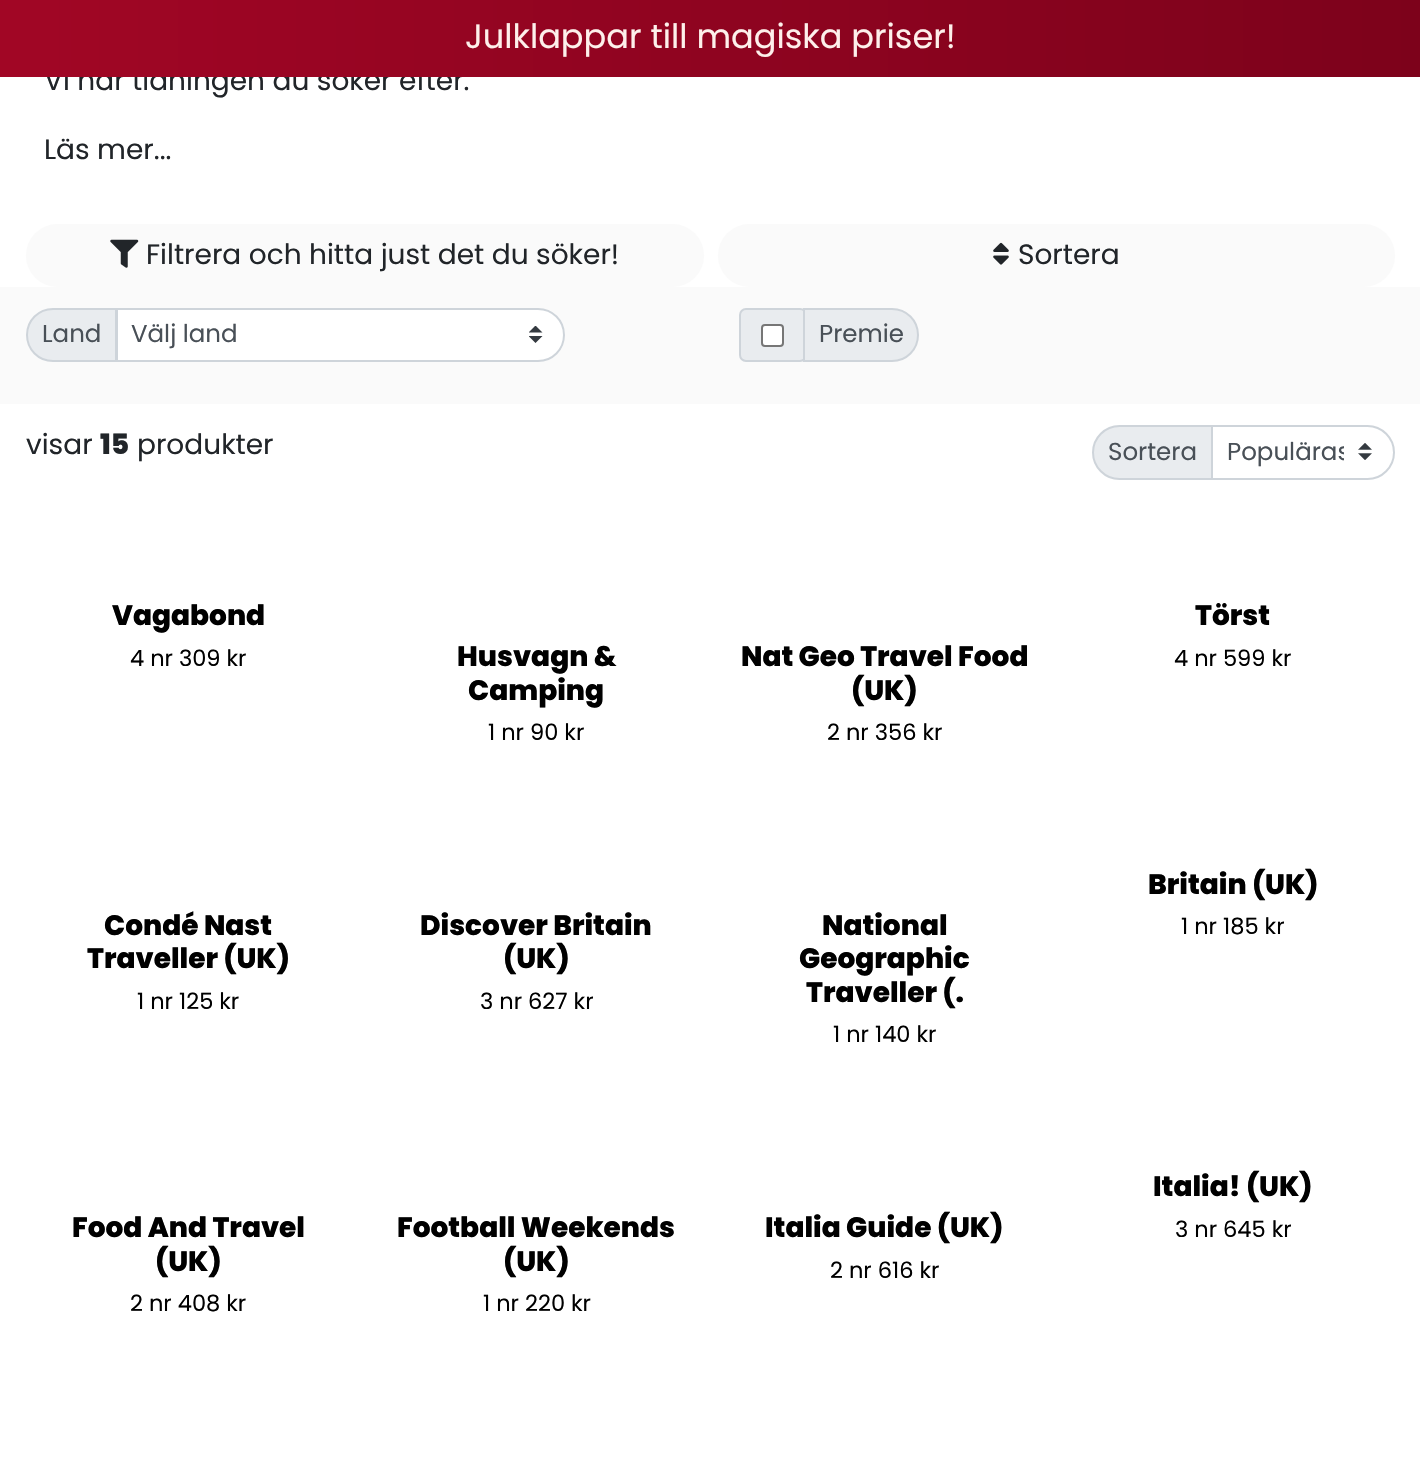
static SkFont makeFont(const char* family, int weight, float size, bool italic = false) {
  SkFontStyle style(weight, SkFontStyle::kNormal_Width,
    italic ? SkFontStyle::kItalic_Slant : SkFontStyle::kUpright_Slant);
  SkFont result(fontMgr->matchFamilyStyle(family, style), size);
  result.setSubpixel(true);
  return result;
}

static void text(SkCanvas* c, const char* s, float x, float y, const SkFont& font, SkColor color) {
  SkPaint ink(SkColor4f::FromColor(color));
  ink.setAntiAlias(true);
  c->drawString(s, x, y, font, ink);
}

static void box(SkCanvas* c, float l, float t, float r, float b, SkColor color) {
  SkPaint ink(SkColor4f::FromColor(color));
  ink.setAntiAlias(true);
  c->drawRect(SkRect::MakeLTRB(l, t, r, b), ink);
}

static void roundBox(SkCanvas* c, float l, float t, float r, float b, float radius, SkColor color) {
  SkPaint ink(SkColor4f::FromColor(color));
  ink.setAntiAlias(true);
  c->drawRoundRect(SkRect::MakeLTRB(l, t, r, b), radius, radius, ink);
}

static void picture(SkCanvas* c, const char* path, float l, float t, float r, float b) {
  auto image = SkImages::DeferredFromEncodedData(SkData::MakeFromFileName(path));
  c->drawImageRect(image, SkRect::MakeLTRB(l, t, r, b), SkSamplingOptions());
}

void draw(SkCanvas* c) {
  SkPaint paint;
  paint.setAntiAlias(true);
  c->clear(0xffffffff);
  SkFont face1 = makeFont("Poppins", 400, 28);
  text(c, "Vi har tidningen du söker efter.", 44, 90, face1, 0xff212529);
  {
    const SkColor colors[] = {0xffa10625, 0xff7d021b};
    const float stops[] = {0, 1};
    const SkPoint ends[] = {{0, 39}, {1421, 38}};
    paint.setShader(SkGradientShader::MakeLinear(ends, colors, stops, 2, SkTileMode::kClamp));
    paint.setAlpha(255);
  }
  c->drawRect(SkRect::MakeLTRB(0, 0, 1420, 77), paint);
  SkFont face2 = makeFont("Poppins", 400, 33.6f);
  text(c, "Julklappar till magiska priser!", 465, 48, face2, 0xfffef0eb);
  text(c, "Läs mer...", 44, 159, face1, 0xff212529);
  roundBox(c, 26, 224, 704, 287, 31.5f, 0xfffafafa);
  picture(c, "img_01.png", 110, 239, 139, 268);
  text(c, "Filtrera och hitta just det du söker!", 146, 264, face1, 0xff212529);
  roundBox(c, 718, 224, 1395, 287, 31.5f, 0xfffafafa);
  picture(c, "img_02.png", 993, 242, 1009, 265);
  text(c, "Sortera", 1018, 264, face1, 0xff212529);
  box(c, 0, 287, 1420, 404, 0xfffafafa);
  paint.setShader(nullptr);
  paint.setColor(0xffe9ecef);
  c->drawPath(SkPathBuilder().moveTo(53, 309).lineTo(116, 309).lineTo(116, 361).lineTo(53, 361).cubicTo(38.5f, 361, 27, 349.5f, 27, 335).cubicTo(27, 320.5f, 38.5f, 309, 53, 309).close().detach(), paint);
  paint.setStyle(SkPaint::kStroke_Style);
  paint.setStrokeWidth(2);
  paint.setColor(0xffced4da);
  c->drawPath(SkPathBuilder().moveTo(53, 309).lineTo(116, 309).lineTo(116, 361).lineTo(53, 361).cubicTo(38.5f, 361, 27, 349.5f, 27, 335).cubicTo(27, 320.5f, 38.5f, 309, 53, 309).close().detach(), paint);
  SkFont face3 = makeFont("Poppins", 400, 24.5f);
  text(c, "Land", 42, 342, face3, 0xff495057);
  paint.setStyle(SkPaint::kFill_Style);
  paint.setColor(0xffffffff);
  c->drawPath(SkPathBuilder().moveTo(116, 308).lineTo(538, 308).cubicTo(553, 308, 565, 320, 565, 335).cubicTo(565, 350, 553, 362, 538, 362).lineTo(116, 362).close().detach(), paint);
  c->save();
  c->clipRect(SkRect::MakeLTRB(529, 326, 543, 343));
  paint.setColor(0xff343a40);
  c->drawPath(SkPathBuilder().moveTo(535.5f, 325.5f).lineTo(528.5f, 332.5f).lineTo(542.5f, 332.5f).close().moveTo(535.5f, 343).lineTo(528.5f, 336).lineTo(542.5f, 336).close().detach(), paint);
  c->restore();
  paint.setStyle(SkPaint::kStroke_Style);
  paint.setColor(0xffced4da);
  c->drawPath(SkPathBuilder().moveTo(117, 309).lineTo(538, 309).cubicTo(552.5f, 309, 564, 320.5f, 564, 335).cubicTo(564, 349.5f, 552.5f, 361, 538, 361).lineTo(117, 361).close().detach(), paint);
  text(c, "Välj land", 131, 342, face3, 0xff495057);
  paint.setStyle(SkPaint::kFill_Style);
  paint.setColor(0xffe9ecef);
  c->drawRoundRect(SkRect::MakeLTRB(740, 309, 806, 361), 6, 6, paint);
  paint.setStyle(SkPaint::kStroke_Style);
  paint.setColor(0xffced4da);
  c->drawRoundRect(SkRect::MakeLTRB(740, 309, 806, 361), 6, 6, paint);
  paint.setStyle(SkPaint::kFill_Style);
  paint.setColor(0xffffffff);
  c->drawRoundRect(SkRect::MakeLTRB(762, 325, 783, 346), 3, 3, paint);
  paint.setStyle(SkPaint::kStroke_Style);
  paint.setColor(0xff767676);
  c->drawRoundRect(SkRect::MakeLTRB(762, 325, 783, 346), 3, 3, paint);
  paint.setStyle(SkPaint::kFill_Style);
  paint.setColor(0xffe9ecef);
  c->drawPath(SkPathBuilder().moveTo(804, 309).lineTo(892, 309).cubicTo(906.5f, 309, 918, 320.5f, 918, 335).cubicTo(918, 349.5f, 906.5f, 361, 892, 361).lineTo(804, 361).close().detach(), paint);
  paint.setStyle(SkPaint::kStroke_Style);
  paint.setColor(0xffced4da);
  c->drawPath(SkPathBuilder().moveTo(804, 309).lineTo(892, 309).cubicTo(906.5f, 309, 918, 320.5f, 918, 335).cubicTo(918, 349.5f, 906.5f, 361, 892, 361).lineTo(804, 361).close().detach(), paint);
  text(c, "Premie", 819, 342, face3, 0xff495057);
  text(c, "visar", 26, 454, face1, 0xff212529);
  SkFont face4 = makeFont("Poppins", 800, 28);
  text(c, "15", 100, 454, face4, 0xff212529);
  text(c, "produkter", 137, 454, face1, 0xff212529);
  paint.setStyle(SkPaint::kFill_Style);
  paint.setColor(0xffe9ecef);
  c->drawPath(SkPathBuilder().moveTo(1119.5f, 426).lineTo(1212, 426).lineTo(1212, 479).lineTo(1119.5f, 479).cubicTo(1105, 479, 1093, 467, 1093, 452.5f).cubicTo(1093, 438, 1105, 426, 1119.5f, 426).close().detach(), paint);
  paint.setStyle(SkPaint::kStroke_Style);
  paint.setColor(0xffced4da);
  c->drawPath(SkPathBuilder().moveTo(1119.5f, 426).lineTo(1212, 426).lineTo(1212, 479).lineTo(1119.5f, 479).cubicTo(1105, 479, 1093, 467, 1093, 452.5f).cubicTo(1093, 438, 1105, 426, 1119.5f, 426).close().detach(), paint);
  text(c, "Sortera", 1108, 460, face3, 0xff495057);
  paint.setStyle(SkPaint::kFill_Style);
  paint.setColor(0xffffffff);
  c->drawPath(SkPathBuilder().moveTo(1211, 425).lineTo(1367.5f, 425).cubicTo(1382.5f, 425, 1395, 437.5f, 1395, 452.5f).cubicTo(1395, 467.5f, 1382.5f, 480, 1367.5f, 480).lineTo(1211, 480).close().detach(), paint);
  picture(c, "img_03.png", 1358, 443, 1372, 460);
  paint.setStyle(SkPaint::kStroke_Style);
  paint.setColor(0xffced4da);
  c->drawPath(SkPathBuilder().moveTo(1212, 426).lineTo(1367.5f, 426).cubicTo(1382, 426, 1394, 438, 1394, 452.5f).cubicTo(1394, 467, 1382, 479, 1367.5f, 479).lineTo(1212, 479).close().detach(), paint);
  c->save();
  c->clipRect(SkRect::MakeLTRB(1227, 434, 1344, 471));
  text(c, "Populäras", 1227, 460, face3, 0xff495057);
  c->restore();
  text(c, "Vagabond", 112, 625, face4, 0xff000000);
  SkFont face5 = makeFont("Poppins", 400, 22.5f);
  text(c, "4 nr 309 kr", 130, 666, face5, 0xff000000);
  text(c, "Törst", 1195, 625, face4, 0xff000000);
  text(c, "4 nr 599 kr", 1174, 666, face5, 0xff000000);
  text(c, "Husvagn &", 457, 666, face4, 0xff000000);
  text(c, "Camping", 468, 700, face4, 0xff000000);
  text(c, "1 nr 90 kr", 488, 740, face5, 0xff000000);
  text(c, "Nat Geo Travel Food", 741, 666, face4, 0xff000000);
  text(c, "(UK)", 851, 700, face4, 0xff000000);
  text(c, "2 nr 356 kr", 827, 740, face5, 0xff000000);
  text(c, "Britain (UK)", 1148, 894, face4, 0xff000000);
  text(c, "1 nr 185 kr", 1181, 934, face5, 0xff000000);
  text(c, "Condé Nast", 104, 935, face4, 0xff000000);
  text(c, "Traveller (UK)", 87, 968, face4, 0xff000000);
  text(c, "1 nr 125 kr", 137, 1009, face5, 0xff000000);
  text(c, "Discover Britain", 420, 935, face4, 0xff000000);
  text(c, "(UK)", 503, 968, face4, 0xff000000);
  text(c, "3 nr 627 kr", 480, 1009, face5, 0xff000000);
  text(c, "National", 822, 935, face4, 0xff000000);
  text(c, "Geographic", 799, 968, face4, 0xff000000);
  text(c, "Traveller (.", 806, 1002, face4, 0xff000000);
  text(c, "1 nr 140 kr", 833, 1042, face5, 0xff000000);
  text(c, "Italia! (UK)", 1153, 1196, face4, 0xff000000);
  text(c, "3 nr 645 kr", 1175, 1237, face5, 0xff000000);
  text(c, "Food And Travel", 72, 1237, face4, 0xff000000);
  text(c, "(UK)", 155, 1271, face4, 0xff000000);
  text(c, "2 nr 408 kr", 130, 1311, face5, 0xff000000);
  text(c, "Football Weekends", 397, 1237, face4, 0xff000000);
  text(c, "(UK)", 503, 1271, face4, 0xff000000);
  text(c, "1 nr 220 kr", 483, 1311, face5, 0xff000000);
  text(c, "Italia Guide (UK)", 765, 1237, face4, 0xff000000);
  text(c, "2 nr 616 kr", 830, 1278, face5, 0xff000000);
}
